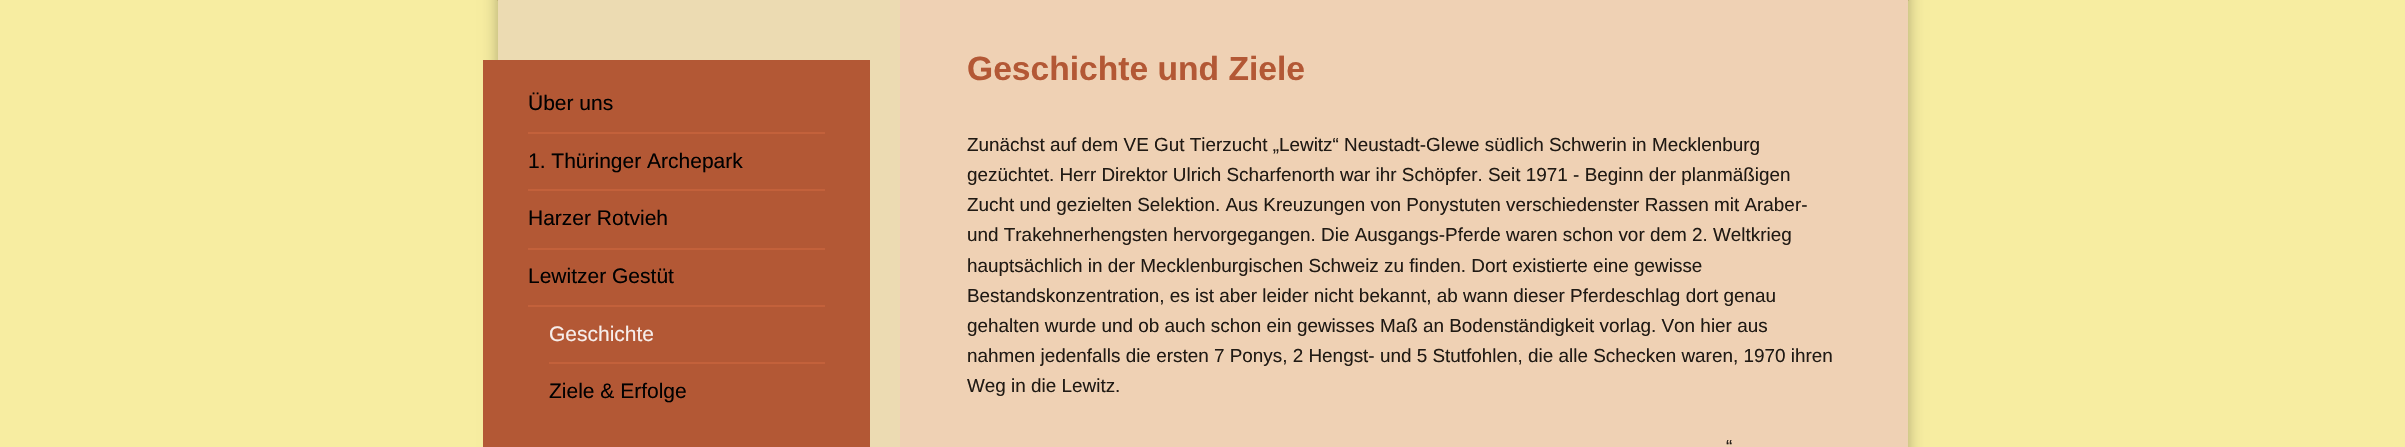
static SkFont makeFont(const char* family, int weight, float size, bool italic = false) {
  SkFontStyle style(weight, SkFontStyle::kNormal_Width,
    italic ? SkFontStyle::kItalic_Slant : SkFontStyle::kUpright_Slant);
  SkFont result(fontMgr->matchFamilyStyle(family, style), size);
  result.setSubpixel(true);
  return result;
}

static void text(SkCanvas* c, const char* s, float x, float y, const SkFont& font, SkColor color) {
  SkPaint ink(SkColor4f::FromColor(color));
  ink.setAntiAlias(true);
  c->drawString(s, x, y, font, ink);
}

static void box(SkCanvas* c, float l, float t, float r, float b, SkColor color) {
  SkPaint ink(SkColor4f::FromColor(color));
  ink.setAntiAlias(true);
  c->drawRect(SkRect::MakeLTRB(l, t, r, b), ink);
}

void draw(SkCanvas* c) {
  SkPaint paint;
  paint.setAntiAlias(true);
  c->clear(0xfff7eda1);
  paint.setColor(0x4d000000);
  paint.setMaskFilter(SkMaskFilter::MakeBlur(kNormal_SkBlurStyle, 7.5f));
  c->drawRect(SkRect::MakeLTRB(498, -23, 1908, 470), paint);
  paint.setMaskFilter(nullptr);
  paint.setColor(0xff64311e);
  c->drawPath(SkPathBuilder().moveTo(498, -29.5f).lineTo(498, 0.5f).lineTo(483, -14.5f).close().detach(), paint);
  c->drawPath(SkPathBuilder().moveTo(1908, 0.5f).lineTo(1908, -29.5f).lineTo(1923, -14.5f).close().detach(), paint);
  box(c, 900, 0, 1908, 447, 0xffefd1b4);
  box(c, 498, 0, 900, 447, 0xffecdbb2);
  SkFont face1 = makeFont("Liberation Sans", 700, 33.6f);
  text(c, "Geschichte und Ziele", 967, 80, face1, 0xffb35835);
  SkFont face2 = makeFont("Liberation Sans", 400, 18.9f);
  text(c, "Zunächst auf dem VE Gut Tierzucht „Lewitz“ Neustadt-Glewe südlich Schwerin in Mecklenburg", 967, 151, face2, 0xff201a14);
  text(c, "gezüchtet. Herr Direktor Ulrich Scharfenorth war ihr Schöpfer. Seit 1971 - Beginn der planmäßigen", 967, 181, face2, 0xff201a14);
  text(c, "Zucht und gezielten Selektion. Aus Kreuzungen von Ponystuten verschiedenster Rassen mit Araber-", 967, 211, face2, 0xff201a14);
  text(c, "und Trakehnerhengsten hervorgegangen. Die Ausgangs-Pferde waren schon vor dem 2. Weltkrieg", 967, 241, face2, 0xff201a14);
  text(c, "hauptsächlich in der Mecklenburgischen Schweiz zu finden. Dort existierte eine gewisse", 967, 272, face2, 0xff201a14);
  text(c, "Bestandskonzentration, es ist aber leider nicht bekannt, ab wann dieser Pferdeschlag dort genau", 967, 302, face2, 0xff201a14);
  text(c, "gehalten wurde und ob auch schon ein gewisses Maß an Bodenständigkeit vorlag. Von hier aus", 967, 332, face2, 0xff201a14);
  text(c, "nahmen jedenfalls die ersten 7 Ponys, 2 Hengst- und 5 Stutfohlen, die alle Schecken waren, 1970 ihren", 967, 362, face2, 0xff201a14);
  text(c, "Weg in die Lewitz.", 967, 392, face2, 0xff201a14);
  text(c, "“", 1726, 453, face2, 0xff201a14);
  box(c, 483, 60, 870, 447, 0xffb35835);
  box(c, 528, 132, 825, 134, 0xffc3613b);
  SkFont face3 = makeFont("Liberation Sans", 400, 21);
  text(c, "Über uns", 528, 110, face3, 0xff000000);
  box(c, 528, 189, 825, 191, 0xffc3613b);
  text(c, "1. Thüringer Archepark", 528, 168, face3, 0xff000000);
  box(c, 528, 248, 825, 250, 0xffc3613b);
  text(c, "Harzer Rotvieh", 528, 225, face3, 0xff000000);
  box(c, 528, 305, 825, 307, 0xffc3613b);
  text(c, "Lewitzer Gestüt", 528, 283, face3, 0xff000000);
  box(c, 549, 362, 825, 364, 0xffc3613b);
  text(c, "Geschichte", 549, 341, face3, 0xfff7eeeb);
  text(c, "Ziele & Erfolge", 549, 398, face3, 0xff000000);
}
